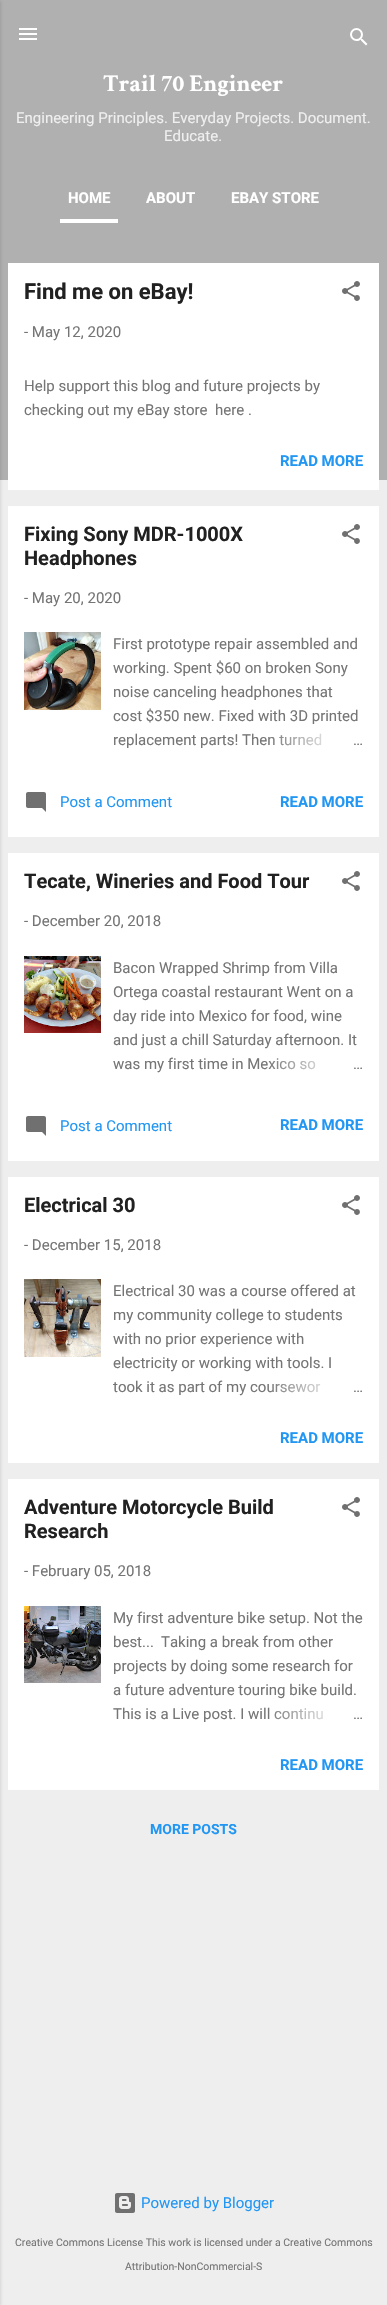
static SkFont makeFont(const char* family, int weight, float size, bool italic = false) {
  SkFontStyle style(weight, SkFontStyle::kNormal_Width,
    italic ? SkFontStyle::kItalic_Slant : SkFontStyle::kUpright_Slant);
  SkFont result(fontMgr->matchFamilyStyle(family, style), size);
  result.setSubpixel(true);
  return result;
}

static void text(SkCanvas* c, const char* s, float x, float y, const SkFont& font, SkColor color) {
  SkPaint ink(SkColor4f::FromColor(color));
  ink.setAntiAlias(true);
  c->drawString(s, x, y, font, ink);
}

static void box(SkCanvas* c, float l, float t, float r, float b, SkColor color) {
  SkPaint ink(SkColor4f::FromColor(color));
  ink.setAntiAlias(true);
  c->drawRect(SkRect::MakeLTRB(l, t, r, b), ink);
}

static void picture(SkCanvas* c, const char* path, float l, float t, float r, float b) {
  auto image = SkImages::DeferredFromEncodedData(SkData::MakeFromFileName(path));
  c->drawImageRect(image, SkRect::MakeLTRB(l, t, r, b), SkSamplingOptions());
}

void draw(SkCanvas* c) {
  SkPaint paint;
  paint.setAntiAlias(true);
  c->clear(0xffeeeeee);
  box(c, 0, 0, 387, 480, 0xffb0b0b0);
  paint.setColor(0x1a000000);
  paint.setMaskFilter(SkMaskFilter::MakeBlur(kNormal_SkBlurStyle, 1.5f));
  c->drawRect(SkRect::MakeLTRB(-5, 1, 1, 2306), paint);
  paint.setMaskFilter(nullptr);
  picture(c, "img_01.png", 19, 28, 37, 40);
  picture(c, "img_02.png", 350, 28, 368, 46);
  SkFont face1 = makeFont("Crimson Text", 700, 24);
  text(c, "Trail 70 Engineer", 103, 91, face1, 0xffffffff);
  SkFont face2 = makeFont("Roboto", 400, 15);
  text(c, "Engineering Principles. Everyday Projects. Document.", 16, 123, face2, 0xffefefef);
  text(c, "Educate.", 164, 141, face2, 0xffefefef);
  box(c, 60, 219, 118, 223, 0xffffffff);
  SkFont face3 = makeFont("Roboto", 700, 15);
  text(c, "HOME", 68, 203, face3, 0xffffffff);
  text(c, "ABOUT", 146, 203, face3, 0xffffffff);
  text(c, "EBAY STORE", 231, 203, face3, 0xffffffff);
  box(c, 8, 263, 379, 490, 0xffffffff);
  SkFont face4 = makeFont("Roboto", 700, 22);
  text(c, "Find me on eBay!", 24, 299, face4, 0xff212121);
  picture(c, "img_03.png", 342, 281, 360, 301);
  text(c, "- May 12, 2020", 24, 337, face2, 0xff757575);
  text(c, "Help support this blog and future projects by", 24, 391, face2, 0xff757575);
  text(c, "checking out my eBay store  here .", 24, 415, face2, 0xff757575);
  text(c, "READ MORE", 280, 466, face3, 0xff2196f3);
  box(c, 8, 506, 379, 837, 0xffffffff);
  SkFont face5 = makeFont("Roboto", 700, 20);
  text(c, "Fixing Sony MDR-1000X", 24, 541, face5, 0xff212121);
  text(c, "Headphones", 24, 565, face5, 0xff212121);
  picture(c, "img_03.png", 342, 524, 360, 544);
  text(c, "- May 20, 2020", 24, 603, face2, 0xff757575);
  picture(c, "img_04.png", 24, 632, 101, 710);
  text(c, "First prototype repair assembled and", 113, 649, face2, 0xff757575);
  text(c, "working. Spent $60 on broken Sony", 113, 673, face2, 0xff757575);
  text(c, "noise canceling headphones that", 113, 697, face2, 0xff757575);
  text(c, "cost $350 new. Fixed with 3D printed", 113, 721, face2, 0xff757575);
  text(c, "replacement parts! Then turned", 113, 745, face2, 0xff757575);
  {
    const SkColor colors[] = {0xffffffff, 0xffffffff, 0x00ffffff};
    const float stops[] = {0, 0.2f, 1};
    const SkPoint ends[] = {{363, 740}, {267, 740}};
    paint.setShader(SkGradientShader::MakeLinear(ends, colors, stops, 3, SkTileMode::kClamp));
    paint.setAlpha(255);
  }
  c->drawRect(SkRect::MakeLTRB(269, 733, 322, 746), paint);
  text(c, "…", 353, 745, face2, 0xff757575);
  picture(c, "img_05.png", 26, 792, 46, 812);
  text(c, "Post a Comment", 60, 807, face2, 0xff2196f3);
  text(c, "READ MORE", 280, 807, face3, 0xff2196f3);
  box(c, 8, 853, 379, 1161, 0xffffffff);
  text(c, "Tecate, Wineries and Food Tour", 24, 888, face5, 0xff212121);
  picture(c, "img_03.png", 342, 871, 360, 891);
  text(c, "- December 20, 2018", 24, 926, face2, 0xff757575);
  picture(c, "img_06.png", 24, 956, 101, 1033);
  text(c, "Bacon Wrapped Shrimp from Villa", 113, 973, face2, 0xff757575);
  text(c, "Ortega coastal restaurant Went on a", 113, 997, face2, 0xff757575);
  text(c, "day ride into Mexico for food, wine", 113, 1021, face2, 0xff757575);
  text(c, "and just a chill Saturday afternoon. It", 113, 1045, face2, 0xff757575);
  text(c, "was my first time in Mexico so", 113, 1069, face2, 0xff757575);
  {
    const SkColor colors[] = {0xffffffff, 0xffffffff, 0x00ffffff};
    const float stops[] = {0, 0.2f, 1};
    const SkPoint ends[] = {{363, 1064}, {267, 1064}};
    paint.setShader(SkGradientShader::MakeLinear(ends, colors, stops, 3, SkTileMode::kClamp));
    paint.setAlpha(255);
  }
  c->drawRect(SkRect::MakeLTRB(269, 1058, 316, 1070), paint);
  text(c, "…", 353, 1069, face2, 0xff757575);
  picture(c, "img_05.png", 26, 1116, 46, 1136);
  text(c, "Post a Comment", 60, 1131, face2, 0xff2196f3);
  text(c, "READ MORE", 280, 1130, face3, 0xff2196f3);
  box(c, 8, 1177, 379, 1463, 0xffffffff);
  text(c, "Electrical 30", 24, 1212, face5, 0xff212121);
  picture(c, "img_03.png", 342, 1195, 360, 1215);
  text(c, "- December 15, 2018", 24, 1250, face2, 0xff757575);
  picture(c, "img_07.png", 24, 1279, 101, 1357);
  text(c, "Electrical 30 was a course offered at", 113, 1296, face2, 0xff757575);
  text(c, "my community college to students", 113, 1320, face2, 0xff757575);
  text(c, "with no prior experience with", 113, 1344, face2, 0xff757575);
  text(c, "electricity or working with tools. I", 113, 1368, face2, 0xff757575);
  text(c, "took it as part of my coursewor", 113, 1392, face2, 0xff757575);
  {
    const SkColor colors[] = {0xffffffff, 0xffffffff, 0x00ffffff};
    const float stops[] = {0, 0.2f, 1};
    const SkPoint ends[] = {{363, 1387}, {267, 1387}};
    paint.setShader(SkGradientShader::MakeLinear(ends, colors, stops, 3, SkTileMode::kClamp));
    paint.setAlpha(255);
  }
  c->drawRect(SkRect::MakeLTRB(269, 1383, 321, 1393), paint);
  text(c, "…", 353, 1392, face2, 0xff757575);
  text(c, "READ MORE", 280, 1443, face3, 0xff2196f3);
  box(c, 8, 1479, 379, 1790, 0xffffffff);
  text(c, "Adventure Motorcycle Build", 24, 1514, face5, 0xff212121);
  text(c, "Research", 24, 1538, face5, 0xff212121);
  picture(c, "img_03.png", 342, 1497, 360, 1517);
  text(c, "- February 05, 2018", 24, 1576, face2, 0xff757575);
  picture(c, "img_08.png", 24, 1606, 101, 1683);
  text(c, "My first adventure bike setup. Not the", 113, 1623, face2, 0xff757575);
  text(c, "best...", 113, 1647, face2, 0xff757575);
  text(c, "Taking a break from other", 161, 1647, face2, 0xff757575);
  text(c, "projects by doing some research for", 113, 1671, face2, 0xff757575);
  text(c, "a future adventure touring bike build.", 113, 1695, face2, 0xff757575);
  text(c, "This is a Live post. I will continu", 113, 1719, face2, 0xff757575);
  {
    const SkColor colors[] = {0xffffffff, 0xffffffff, 0x00ffffff};
    const float stops[] = {0, 0.2f, 1};
    const SkPoint ends[] = {{363, 1714}, {267, 1714}};
    paint.setShader(SkGradientShader::MakeLinear(ends, colors, stops, 3, SkTileMode::kClamp));
    paint.setAlpha(255);
  }
  c->drawRect(SkRect::MakeLTRB(274, 1708, 323, 1720), paint);
  text(c, "…", 353, 1719, face2, 0xff757575);
  text(c, "READ MORE", 280, 1770, face3, 0xff2196f3);
  SkFont face6 = makeFont("Roboto", 700, 14);
  text(c, "MORE POSTS", 150, 1834, face6, 0xff2196f3);
  picture(c, "img_09.png", 115, 2193, 135, 2213);
  text(c, "Powered by Blogger", 141, 2208, face2, 0xff2196f3);
  SkFont face7 = makeFont("Roboto", 400, 10.5f);
  text(c, "Creative Commons License This work is licensed under a Creative Commons", 15, 2246, face7, 0xff757575);
  text(c, "Attribution-NonCommercial-S", 125, 2270, face7, 0xff757575);
}
